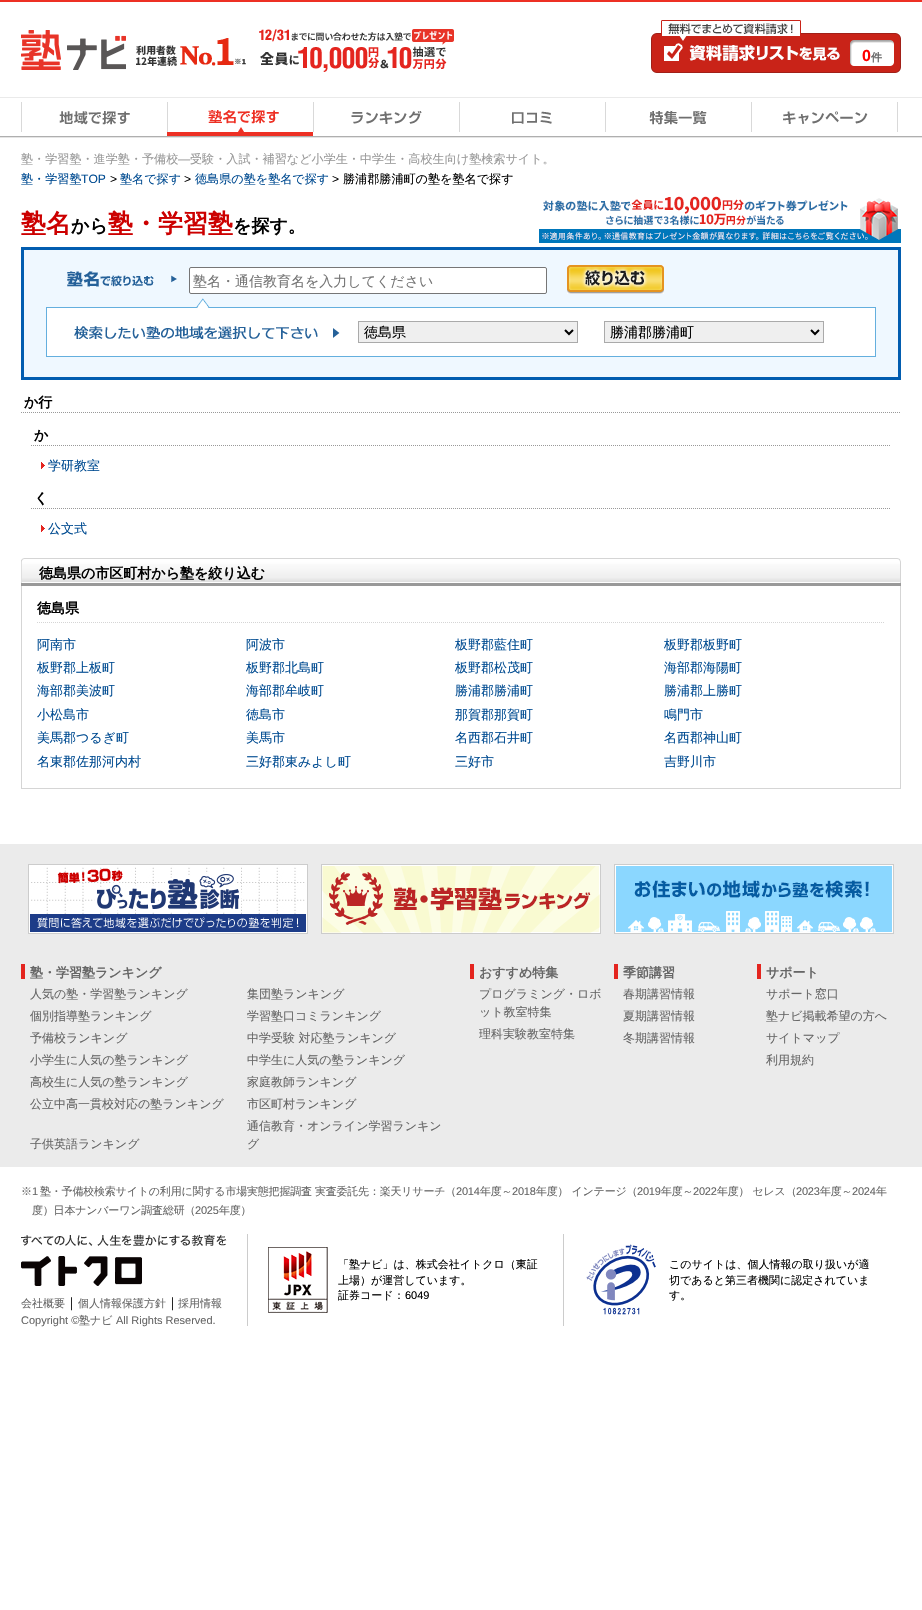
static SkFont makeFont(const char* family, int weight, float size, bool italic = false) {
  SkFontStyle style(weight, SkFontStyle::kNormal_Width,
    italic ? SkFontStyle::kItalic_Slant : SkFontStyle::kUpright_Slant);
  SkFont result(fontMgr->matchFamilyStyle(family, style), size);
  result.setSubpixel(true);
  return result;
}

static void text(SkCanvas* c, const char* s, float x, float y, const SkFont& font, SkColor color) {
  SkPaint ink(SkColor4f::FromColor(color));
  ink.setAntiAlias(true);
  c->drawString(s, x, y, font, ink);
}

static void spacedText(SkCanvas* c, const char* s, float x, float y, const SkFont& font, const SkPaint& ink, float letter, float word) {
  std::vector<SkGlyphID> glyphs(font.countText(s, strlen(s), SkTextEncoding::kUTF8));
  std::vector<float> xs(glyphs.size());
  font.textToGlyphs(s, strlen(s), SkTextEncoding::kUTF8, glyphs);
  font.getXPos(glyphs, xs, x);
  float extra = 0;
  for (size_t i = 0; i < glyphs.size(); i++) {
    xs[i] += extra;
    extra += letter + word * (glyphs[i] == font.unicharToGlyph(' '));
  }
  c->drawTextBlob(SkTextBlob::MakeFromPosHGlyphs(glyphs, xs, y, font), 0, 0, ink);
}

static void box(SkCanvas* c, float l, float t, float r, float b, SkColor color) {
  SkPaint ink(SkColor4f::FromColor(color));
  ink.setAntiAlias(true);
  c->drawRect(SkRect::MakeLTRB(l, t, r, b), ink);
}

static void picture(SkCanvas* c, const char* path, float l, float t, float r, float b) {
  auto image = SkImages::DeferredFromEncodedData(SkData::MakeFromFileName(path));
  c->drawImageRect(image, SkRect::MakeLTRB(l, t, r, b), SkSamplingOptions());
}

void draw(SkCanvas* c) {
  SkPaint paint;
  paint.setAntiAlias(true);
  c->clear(0xffffffff);
  box(c, 0, 0, 922, 2, 0xffed3024);
  picture(c, "img_01.png", 21, 30, 126, 70);
  picture(c, "img_02.png", 136, 38, 246, 66);
  picture(c, "img_03.png", 259, 29, 454, 72);
  picture(c, "img_04.png", 651, 20, 901, 73);
  SkFont face1 = makeFont("Liberation Sans", 700, 16);
  text(c, "0", 862, 61, face1, 0xffff0000);
  SkFont face2 = makeFont("WenQuanYi Zen Hei", 700, 11);
  text(c, "件", 871, 61, face2, 0xff666666);
  c->save();
  c->clipRect(SkRect::MakeLTRB(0, 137, 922, 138));
  paint.setColor(0x1a000000);
  paint.setMaskFilter(SkMaskFilter::MakeBlur(kNormal_SkBlurStyle, 0.5f));
  c->drawRect(SkRect::MakeLTRB(0, 98, 922, 138), paint);
  paint.setMaskFilter(nullptr);
  c->restore();
  box(c, 0, 97, 922, 98, 0xffeaeaea);
  box(c, 0, 136, 922, 137, 0xffafafaf);
  picture(c, "img_05.png", 21, 102, 130, 132);
  picture(c, "img_06.png", 167, 102, 313, 136);
  picture(c, "img_07.png", 313, 102, 422, 132);
  picture(c, "img_08.png", 459, 102, 552, 132);
  picture(c, "img_09.png", 605, 102, 707, 132);
  picture(c, "img_10.png", 751, 102, 898, 132);
  SkFont face3 = makeFont("WenQuanYi Zen Hei", 500, 12.1f);
  text(c, "塾・学習塾・進学塾・予備校", 21, 163, face3, 0xff999999);
  SkFont face4 = makeFont("Liberation Sans", 400, 12.1f);
  text(c, "―", 178, 163, face4, 0xff999999);
  text(c, "受験・入試・補習など小学生・中学生・高校生向け塾検索サイト。", 190, 163, face3, 0xff999999);
  text(c, "塾・学習塾", 21, 183, face3, 0xff004b91);
  text(c, "TOP", 81, 183, face4, 0xff004b91);
  text(c, ">", 110, 183, face4, 0xff000000);
  text(c, "塾名で探す", 120, 183, face3, 0xff004b91);
  text(c, ">", 184, 183, face4, 0xff000000);
  text(c, "徳島県の塾を塾名で探す", 195, 183, face3, 0xff004b91);
  text(c, ">", 332, 183, face4, 0xff000000);
  text(c, "勝浦郡勝浦町の塾を塾名で探す", 343, 183, face3, 0xff000000);
  SkFont face5 = makeFont("WenQuanYi Zen Hei", 700, 25);
  text(c, "塾名", 21, 232, face5, 0xffcc0000);
  SkFont face6 = makeFont("WenQuanYi Zen Hei", 700, 18);
  text(c, "から", 71, 232, face6, 0xff000000);
  text(c, "塾・学習塾", 108, 232, face5, 0xffcc0000);
  text(c, "を探す。", 233, 232, face6, 0xff000000);
  paint.setColor(0xffeff8ff);
  c->drawRect(SkRect::MakeLTRB(22.5f, 248.5f, 899.5f, 378.5f), paint);
  paint.setStyle(SkPaint::kStroke_Style);
  paint.setStrokeWidth(3);
  paint.setColor(0xff025db0);
  c->drawRect(SkRect::MakeLTRB(22.5f, 248.5f, 899.5f, 378.5f), paint);
  picture(c, "img_11.png", 67, 271, 177, 287);
  paint.setStyle(SkPaint::kFill_Style);
  paint.setColor(0xffffffff);
  c->drawRoundRect(SkRect::MakeLTRB(189.5f, 267.5f, 546.5f, 293.5f), 1.5f, 1.5f, paint);
  paint.setStyle(SkPaint::kStroke_Style);
  paint.setStrokeWidth(1);
  paint.setColor(0xff767676);
  c->drawRoundRect(SkRect::MakeLTRB(189.5f, 267.5f, 546.5f, 293.5f), 1.5f, 1.5f, paint);
  SkFont face7 = makeFont("WenQuanYi Zen Hei", 500, 14);
  text(c, "塾名・通信教育名を入力してください", 193, 286, face7, 0xff757575);
  picture(c, "img_12.png", 567, 265, 664, 294);
  paint.setStyle(SkPaint::kFill_Style);
  paint.setColor(0xffffffff);
  c->drawRect(SkRect::MakeLTRB(46.5f, 307.5f, 875.5f, 356.5f), paint);
  paint.setStyle(SkPaint::kStroke_Style);
  paint.setColor(0xff64afde);
  c->drawRect(SkRect::MakeLTRB(46.5f, 307.5f, 875.5f, 356.5f), paint);
  picture(c, "img_13.png", 196, 298, 210, 308);
  picture(c, "img_14.png", 74, 326, 340, 339);
  paint.setStyle(SkPaint::kFill_Style);
  paint.setColor(0xffefefef);
  c->drawRect(SkRect::MakeLTRB(358.5f, 321.5f, 577.5f, 342.5f), paint);
  paint.setStyle(SkPaint::kStroke_Style);
  paint.setColor(0xffaaaaaa);
  c->drawRect(SkRect::MakeLTRB(358.5f, 321.5f, 577.5f, 342.5f), paint);
  paint.setStrokeWidth(2);
  paint.setColor(0xff000000);
  c->drawPath(SkPathBuilder().moveTo(565, 330).lineTo(569, 334).lineTo(573, 330).detach(), paint);
  text(c, "徳島県", 364, 337, face7, 0xff000000);
  paint.setStyle(SkPaint::kFill_Style);
  paint.setColor(0xffefefef);
  c->drawRect(SkRect::MakeLTRB(604.5f, 321.5f, 823.5f, 342.5f), paint);
  paint.setStyle(SkPaint::kStroke_Style);
  paint.setStrokeWidth(1);
  paint.setColor(0xffaaaaaa);
  c->drawRect(SkRect::MakeLTRB(604.5f, 321.5f, 823.5f, 342.5f), paint);
  paint.setStrokeWidth(2);
  paint.setColor(0xff000000);
  c->drawPath(SkPathBuilder().moveTo(811, 330).lineTo(815, 334).lineTo(819, 330).detach(), paint);
  text(c, "勝浦郡勝浦町", 610, 337, face7, 0xff000000);
  picture(c, "img_15.png", 539, 196, 901, 243);
  paint.setStrokeWidth(1);
  paint.setColor(0xff999999);
  paint.setPathEffect(SkDashPathEffect::Make({{1, 1}}, 0));
  c->drawPath(SkPathBuilder().moveTo(21, 412.5f).lineTo(901, 412.5f).detach(), paint);
  paint.setPathEffect(nullptr);
  SkFont face8 = makeFont("WenQuanYi Zen Hei", 700, 14);
  text(c, "か行", 24, 407, face8, 0xff000000);
  paint.setPathEffect(SkDashPathEffect::Make({{1, 1}}, 0));
  c->drawPath(SkPathBuilder().moveTo(31, 445.5f).lineTo(891, 445.5f).detach(), paint);
  paint.setPathEffect(nullptr);
  text(c, "か", 34, 440, face8, 0xff000000);
  picture(c, "img_16.png", 41, 462, 45, 469);
  SkFont face9 = makeFont("WenQuanYi Zen Hei", 500, 13);
  text(c, "学研教室", 48, 470, face9, 0xff004b91);
  paint.setPathEffect(SkDashPathEffect::Make({{1, 1}}, 0));
  c->drawPath(SkPathBuilder().moveTo(31, 508.5f).lineTo(891, 508.5f).detach(), paint);
  paint.setPathEffect(nullptr);
  text(c, "く", 34, 503, face8, 0xff000000);
  picture(c, "img_16.png", 41, 525, 45, 532);
  text(c, "公文式", 48, 533, face9, 0xff004b91);
  picture(c, "img_17.png", 21, 558, 901, 586);
  text(c, "徳島県の市区町村から塾を絞り込む", 39, 578, face8, 0xff000000);
  box(c, 900, 586, 901, 789, 0xffd5d5d5);
  box(c, 21, 788, 901, 789, 0xffd5d5d5);
  box(c, 21, 586, 22, 789, 0xffd5d5d5);
  paint.setColor(0xffd5d5d5);
  paint.setPathEffect(SkDashPathEffect::Make({{1, 1}}, 0));
  c->drawPath(SkPathBuilder().moveTo(37, 622.5f).lineTo(885, 622.5f).detach(), paint);
  paint.setPathEffect(nullptr);
  text(c, "徳島県", 37, 613, face8, 0xff000000);
  text(c, "阿南市", 37, 649, face9, 0xff004b91);
  text(c, "阿波市", 246, 649, face9, 0xff004b91);
  text(c, "板野郡藍住町", 455, 649, face9, 0xff004b91);
  text(c, "板野郡板野町", 664, 649, face9, 0xff004b91);
  text(c, "板野郡上板町", 37, 672, face9, 0xff004b91);
  text(c, "板野郡北島町", 246, 672, face9, 0xff004b91);
  text(c, "板野郡松茂町", 455, 672, face9, 0xff004b91);
  text(c, "海部郡海陽町", 664, 672, face9, 0xff004b91);
  text(c, "海部郡美波町", 37, 695, face9, 0xff004b91);
  text(c, "海部郡牟岐町", 246, 695, face9, 0xff004b91);
  text(c, "勝浦郡勝浦町", 455, 695, face9, 0xff004b91);
  text(c, "勝浦郡上勝町", 664, 695, face9, 0xff004b91);
  text(c, "小松島市", 37, 719, face9, 0xff004b91);
  text(c, "徳島市", 246, 719, face9, 0xff004b91);
  text(c, "那賀郡那賀町", 455, 719, face9, 0xff004b91);
  text(c, "鳴門市", 664, 719, face9, 0xff004b91);
  text(c, "美馬郡つるぎ町", 37, 742, face9, 0xff004b91);
  text(c, "美馬市", 246, 742, face9, 0xff004b91);
  text(c, "名西郡石井町", 455, 742, face9, 0xff004b91);
  text(c, "名西郡神山町", 664, 742, face9, 0xff004b91);
  text(c, "名東郡佐那河内村", 37, 766, face9, 0xff004b91);
  text(c, "三好郡東みよし町", 246, 766, face9, 0xff004b91);
  text(c, "三好市", 455, 766, face9, 0xff004b91);
  text(c, "吉野川市", 664, 766, face9, 0xff004b91);
  box(c, 0, 844, 922, 1167, 0xffebebeb);
  picture(c, "img_18.png", 28, 864, 308, 934);
  picture(c, "img_19.png", 321, 864, 601, 934);
  picture(c, "img_20.png", 614, 864, 894, 934);
  box(c, 21, 964, 25, 979, 0xffe4251f);
  SkFont face10 = makeFont("WenQuanYi Zen Hei", 700, 13);
  text(c, "塾・学習塾ランキング", 30, 977, face10, 0xff666666);
  SkFont face11 = makeFont("WenQuanYi Zen Hei", 500, 12);
  text(c, "人気の塾・学習塾ランキング", 30, 998, face11, 0xff666666);
  text(c, "集団塾ランキング", 247, 998, face11, 0xff666666);
  text(c, "個別指導塾ランキング", 30, 1020, face11, 0xff666666);
  text(c, "学習塾口コミランキング", 247, 1020, face11, 0xff666666);
  text(c, "予備校ランキング", 30, 1042, face11, 0xff666666);
  text(c, "中学受験 対応塾ランキング", 247, 1042, face11, 0xff666666);
  text(c, "小学生に人気の塾ランキング", 30, 1064, face11, 0xff666666);
  text(c, "中学生に人気の塾ランキング", 247, 1064, face11, 0xff666666);
  text(c, "高校生に人気の塾ランキング", 30, 1086, face11, 0xff666666);
  text(c, "家庭教師ランキング", 247, 1086, face11, 0xff666666);
  text(c, "公立中高一貫校対応の塾ランキング", 30, 1108, face11, 0xff666666);
  text(c, "市区町村ランキング", 247, 1108, face11, 0xff666666);
  text(c, "子供英語ランキング", 30, 1148, face11, 0xff666666);
  text(c, "通信教育・オンライン学習ランキン", 247, 1130, face11, 0xff666666);
  text(c, "グ", 247, 1148, face11, 0xff666666);
  box(c, 470, 964, 474, 979, 0xffe4251f);
  text(c, "おすすめ特集", 479, 977, face10, 0xff666666);
  text(c, "プログラミング・ロボ", 479, 998, face11, 0xff666666);
  text(c, "ット教室特集", 479, 1016, face11, 0xff666666);
  text(c, "理科実験教室特集", 479, 1038, face11, 0xff666666);
  box(c, 614, 964, 618, 979, 0xffe4251f);
  text(c, "季節講習", 623, 977, face10, 0xff666666);
  text(c, "春期講習情報", 623, 998, face11, 0xff666666);
  text(c, "夏期講習情報", 623, 1020, face11, 0xff666666);
  text(c, "冬期講習情報", 623, 1042, face11, 0xff666666);
  box(c, 757, 964, 761, 979, 0xffe4251f);
  text(c, "サポート", 766, 977, face10, 0xff666666);
  text(c, "サポート窓口", 766, 998, face11, 0xff666666);
  text(c, "塾ナビ掲載希望の方へ", 766, 1020, face11, 0xff666666);
  text(c, "サイトマップ", 766, 1042, face11, 0xff666666);
  text(c, "利用規約", 766, 1064, face11, 0xff666666);
  SkFont face12 = makeFont("WenQuanYi Zen Hei", 500, 11);
  paint.setStyle(SkPaint::kFill_Style);
  paint.setColor(0xff666666);
  spacedText(c, "※", 21, 1195, face12, paint, -0.2f, 0);
  SkFont face13 = makeFont("Liberation Sans", 400, 11);
  spacedText(c, "1", 32, 1195, face13, paint, -0.2f, 0);
  spacedText(c, "塾・予備校検索サイトの利用に関する市場実態把握調査 実査委託先：楽天リサーチ（", 40, 1195, face12, paint, -0.2f, 0);
  spacedText(c, "2014", 456, 1195, face13, paint, -0.2f, 0);
  spacedText(c, "年度～", 480, 1195, face12, paint, -0.2f, 0);
  spacedText(c, "2018", 512, 1195, face13, paint, -0.2f, 0);
  spacedText(c, "年度） インテージ（", 536, 1195, face12, paint, -0.2f, 0);
  spacedText(c, "2019", 637, 1195, face13, paint, -0.2f, 0);
  spacedText(c, "年度～", 661, 1195, face12, paint, -0.2f, 0);
  spacedText(c, "2022", 693, 1195, face13, paint, -0.2f, 0);
  spacedText(c, "年度） セレス（", 717, 1195, face12, paint, -0.2f, 0);
  spacedText(c, "2023", 796, 1195, face13, paint, -0.2f, 0);
  spacedText(c, "年度～", 820, 1195, face12, paint, -0.2f, 0);
  spacedText(c, "2024", 852, 1195, face13, paint, -0.2f, 0);
  spacedText(c, "年", 876, 1195, face12, paint, -0.2f, 0);
  spacedText(c, "度）日本ナンバーワン調査総研（", 32, 1214, face12, paint, -0.2f, 0);
  spacedText(c, "2025", 195, 1214, face13, paint, -0.2f, 0);
  spacedText(c, "年度）", 219, 1214, face12, paint, -0.2f, 0);
  box(c, 563, 1234, 564, 1326, 0xffcccccc);
  picture(c, "img_21.png", 268, 1247, 328, 1313);
  text(c, "「塾ナビ」は、株式会社イトクロ（東証", 338, 1268, face12, 0xff000000);
  text(c, "上場）が運営しています。", 338, 1284, face12, 0xff000000);
  text(c, "証券コード：", 338, 1299, face12, 0xff000000);
  text(c, "6049", 405, 1299, face13, 0xff000000);
  picture(c, "img_22.png", 586, 1244, 656, 1315);
  text(c, "このサイトは、個人情報の取り扱いが適", 669, 1268, face12, 0xff000000);
  text(c, "切であると第三者機関に認定されていま", 669, 1284, face12, 0xff000000);
  text(c, "す。", 669, 1299, face12, 0xff000000);
  box(c, 247, 1234, 248, 1326, 0xffcccccc);
  picture(c, "img_23.png", 21, 1234, 227, 1246);
  picture(c, "img_24.png", 21, 1256, 142, 1286);
  text(c, "会社概要", 21, 1307, face12, 0xff666666);
  text(c, "｜", 65, 1307, face9, 0xff000000);
  text(c, "個人情報保護方針", 78, 1307, face12, 0xff666666);
  text(c, "｜", 166, 1307, face9, 0xff000000);
  text(c, "採用情報", 178, 1307, face12, 0xff666666);
  text(c, "Copyright ©", 21, 1324, face13, 0xff666666);
  text(c, "塾ナビ", 79, 1324, face12, 0xff666666);
  text(c, "All Rights Reserved.", 116, 1324, face13, 0xff666666);
}
